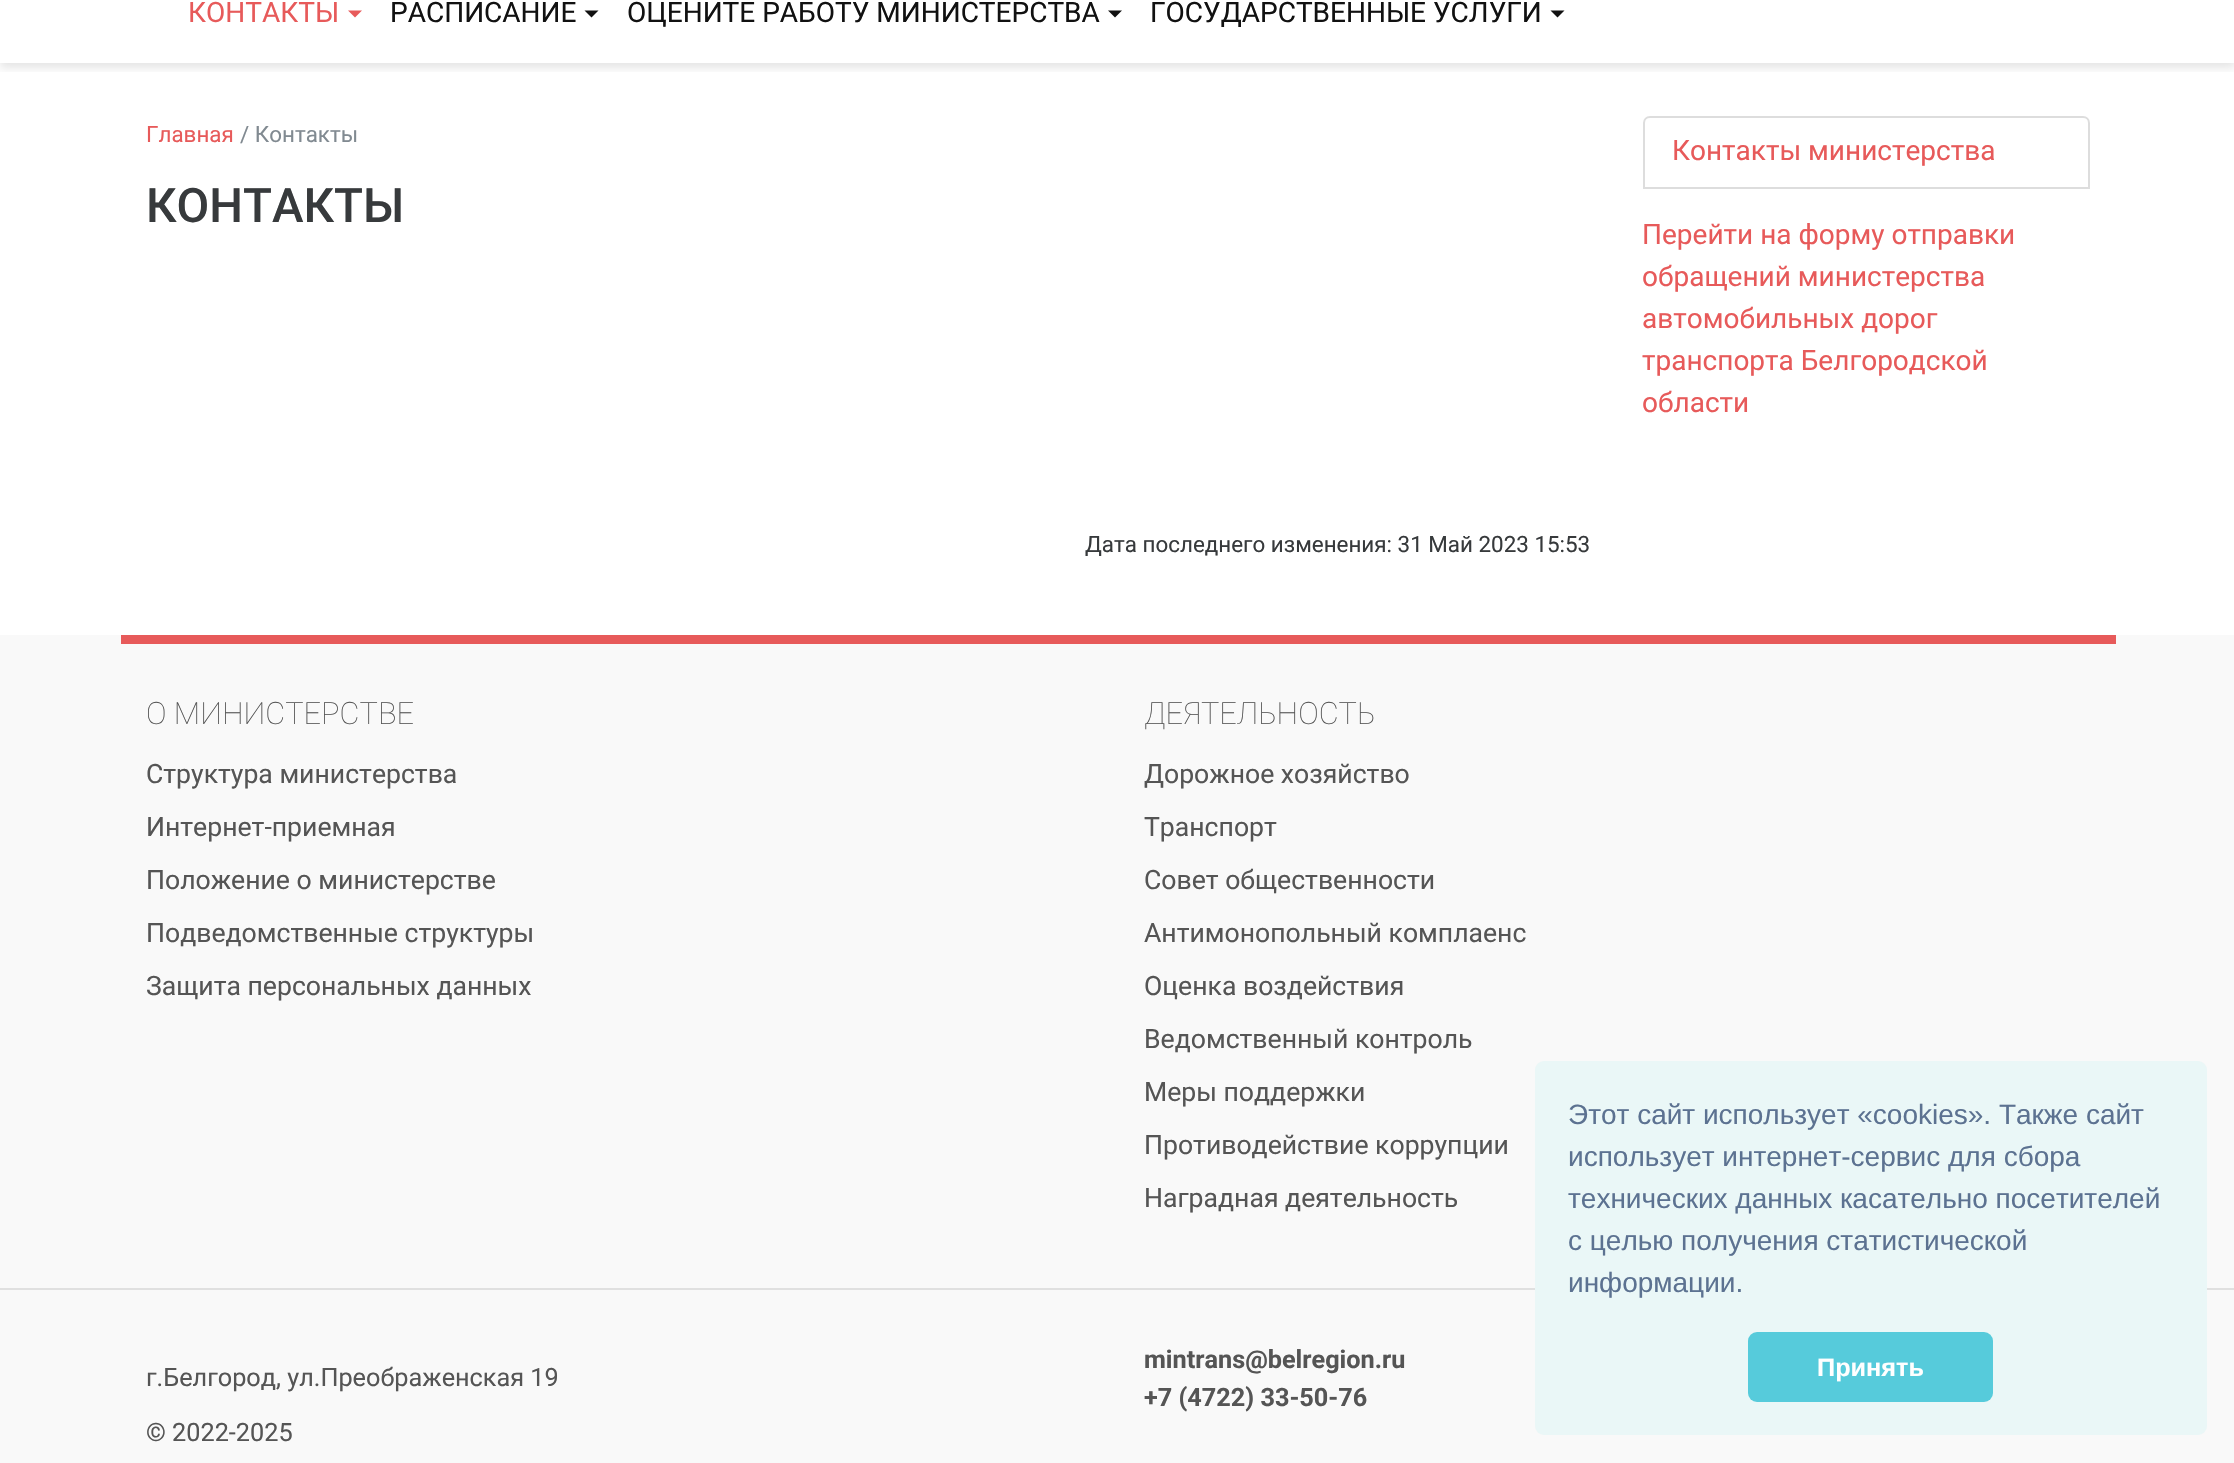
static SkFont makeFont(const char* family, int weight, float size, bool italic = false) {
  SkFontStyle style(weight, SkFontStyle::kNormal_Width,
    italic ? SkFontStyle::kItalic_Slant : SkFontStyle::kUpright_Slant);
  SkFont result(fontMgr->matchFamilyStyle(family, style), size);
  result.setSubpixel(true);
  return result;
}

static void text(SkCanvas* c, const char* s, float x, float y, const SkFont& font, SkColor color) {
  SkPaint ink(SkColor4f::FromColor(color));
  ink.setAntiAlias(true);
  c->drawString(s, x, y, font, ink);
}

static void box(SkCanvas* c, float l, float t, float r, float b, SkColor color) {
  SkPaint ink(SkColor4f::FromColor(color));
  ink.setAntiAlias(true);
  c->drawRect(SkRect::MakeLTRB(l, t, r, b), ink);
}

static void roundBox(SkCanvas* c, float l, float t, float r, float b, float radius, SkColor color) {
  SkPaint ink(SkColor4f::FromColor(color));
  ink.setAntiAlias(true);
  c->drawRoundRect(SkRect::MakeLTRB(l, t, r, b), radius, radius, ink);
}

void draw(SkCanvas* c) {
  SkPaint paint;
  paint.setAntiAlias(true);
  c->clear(0xffffffff);
  c->save();
  c->clipRect(SkRect::MakeLTRB(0, 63, 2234, 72));
  paint.setColor(0x1a000000);
  paint.setMaskFilter(SkMaskFilter::MakeBlur(kNormal_SkBlurStyle, 4.5f));
  c->drawRect(SkRect::MakeLTRB(0, -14, 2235, 68), paint);
  paint.setMaskFilter(nullptr);
  c->restore();
  SkFont face1 = makeFont("Roboto", 400, 28);
  text(c, "КОНТАКТЫ", 188, 22, face1, 0xffe75a5a);
  paint.setColor(0xffe75a5a);
  c->drawPath(SkPathBuilder().moveTo(348, 10.5f).lineTo(362, 10.5f).lineTo(355, 17.5f).close().detach(), paint);
  text(c, "РАСПИСАНИЕ", 390, 22, face1, 0xff111111);
  paint.setColor(0xff111111);
  c->drawPath(SkPathBuilder().moveTo(584.5f, 10.5f).lineTo(598.5f, 10.5f).lineTo(591.5f, 17.5f).close().detach(), paint);
  text(c, "ОЦЕНИТЕ РАБОТУ МИНИСТЕРСТВА", 627, 22, face1, 0xff111111);
  c->drawPath(SkPathBuilder().moveTo(1108, 10.5f).lineTo(1122, 10.5f).lineTo(1115, 17.5f).close().detach(), paint);
  text(c, "ГОСУДАРСТВЕННЫЕ УСЛУГИ", 1150, 22, face1, 0xff111111);
  c->drawPath(SkPathBuilder().moveTo(1550.5f, 10.5f).lineTo(1564.5f, 10.5f).lineTo(1557.5f, 17.5f).close().detach(), paint);
  SkFont face2 = makeFont("Roboto", 400, 22.4f);
  text(c, "Главная", 146, 142, face2, 0xffe75a5a);
  text(c, "/ Контакты", 240, 142, face2, 0xff818a91);
  SkFont face3 = makeFont("Roboto", 500, 47.5f);
  text(c, "КОНТАКТЫ", 146, 222, face3, 0xff373a3c);
  paint.setStyle(SkPaint::kStroke_Style);
  paint.setStrokeWidth(2);
  paint.setColor(0xffdddddd);
  c->drawPath(SkPathBuilder().moveTo(1650, 117).lineTo(2083, 117).cubicTo(2086.5f, 117, 2089, 119.5f, 2089, 123).lineTo(2089, 188).lineTo(1644, 188).lineTo(1644, 123).cubicTo(1644, 119.5f, 1646.5f, 117, 1650, 117).close().detach(), paint);
  text(c, "Контакты министерства", 1672, 160, face1, 0xffe75a5a);
  text(c, "Перейти на форму отправки", 1642, 244, face1, 0xffe75a5a);
  text(c, "обращений министерства", 1642, 286, face1, 0xffe75a5a);
  text(c, "автомобильных дорог", 1642, 328, face1, 0xffe75a5a);
  text(c, "транспорта Белгородской", 1642, 370, face1, 0xffe75a5a);
  text(c, "области", 1642, 412, face1, 0xffe75a5a);
  text(c, "Дата последнего изменения: 31 Май 2023 15:53", 1085, 552, face2, 0xff373a3c);
  box(c, 0, 635, 2234, 1463, 0xfff9f9f9);
  box(c, 121, 635, 2116, 644, 0xffe75a5a);
  SkFont face4 = makeFont("Roboto", 100, 30.75f);
  text(c, "О МИНИСТЕРСТВЕ", 146, 724, face4, 0xff555555);
  SkFont face5 = makeFont("Roboto", 400, 26.6f);
  text(c, "Структура министерства", 146, 783, face5, 0xff555555);
  text(c, "Интернет-приемная", 146, 836, face5, 0xff555555);
  text(c, "Положение о министерстве", 146, 889, face5, 0xff555555);
  text(c, "Подведомственные структуры", 146, 942, face5, 0xff555555);
  text(c, "Защита персональных данных", 146, 995, face5, 0xff555555);
  text(c, "ДЕЯТЕЛЬНОСТЬ", 1144, 724, face4, 0xff555555);
  text(c, "Дорожное хозяйство", 1144, 783, face5, 0xff555555);
  text(c, "Транспорт", 1144, 836, face5, 0xff555555);
  text(c, "Совет общественности", 1144, 889, face5, 0xff555555);
  text(c, "Антимонопольный комплаенс", 1144, 942, face5, 0xff555555);
  text(c, "Оценка воздействия", 1144, 995, face5, 0xff555555);
  text(c, "Ведомственный контроль", 1144, 1048, face5, 0xff555555);
  text(c, "Меры поддержки", 1144, 1101, face5, 0xff555555);
  text(c, "Противодействие коррупции", 1144, 1154, face5, 0xff555555);
  text(c, "Наградная деятельность", 1144, 1207, face5, 0xff555555);
  box(c, 0, 1288, 2234, 1290, 0xffe0e0e0);
  SkFont face6 = makeFont("Roboto", 400, 25.25f);
  text(c, "г.Белгород, ул.Преображенская 19", 146, 1386, face6, 0xff555555);
  text(c, "© 2022-2025", 146, 1441, face6, 0xff555555);
  SkFont face7 = makeFont("Roboto", 700, 25.25f);
  text(c, "mintrans@belregion.ru", 1144, 1368, face7, 0xff555555);
  text(c, "+7 (4722) 33-50-76", 1144, 1406, face7, 0xff555555);
  roundBox(c, 1535, 1061, 2207, 1435, 9, 0xffeaf7f7);
  SkFont face8 = makeFont("Liberation Sans", 400, 28);
  text(c, "Этот сайт использует «cookies». Также сайт", 1568, 1124, face8, 0xff5c7291);
  text(c, "использует интернет-сервис для сбора", 1568, 1166, face8, 0xff5c7291);
  text(c, "технических данных касательно посетителей", 1568, 1208, face8, 0xff5c7291);
  text(c, "с целью получения статистической", 1568, 1250, face8, 0xff5c7291);
  text(c, "информации.", 1568, 1292, face8, 0xff5c7291);
  roundBox(c, 1748, 1332, 1993, 1402, 9, 0xff56cbdb);
  SkFont face9 = makeFont("Liberation Sans", 700, 25.25f);
  text(c, "Принять", 1817, 1376, face9, 0xffffffff);
}
